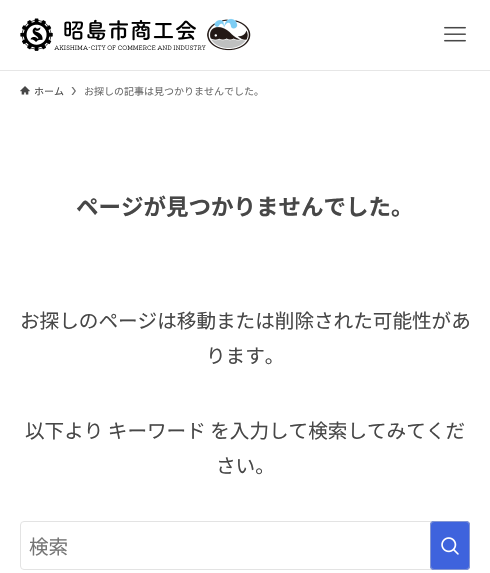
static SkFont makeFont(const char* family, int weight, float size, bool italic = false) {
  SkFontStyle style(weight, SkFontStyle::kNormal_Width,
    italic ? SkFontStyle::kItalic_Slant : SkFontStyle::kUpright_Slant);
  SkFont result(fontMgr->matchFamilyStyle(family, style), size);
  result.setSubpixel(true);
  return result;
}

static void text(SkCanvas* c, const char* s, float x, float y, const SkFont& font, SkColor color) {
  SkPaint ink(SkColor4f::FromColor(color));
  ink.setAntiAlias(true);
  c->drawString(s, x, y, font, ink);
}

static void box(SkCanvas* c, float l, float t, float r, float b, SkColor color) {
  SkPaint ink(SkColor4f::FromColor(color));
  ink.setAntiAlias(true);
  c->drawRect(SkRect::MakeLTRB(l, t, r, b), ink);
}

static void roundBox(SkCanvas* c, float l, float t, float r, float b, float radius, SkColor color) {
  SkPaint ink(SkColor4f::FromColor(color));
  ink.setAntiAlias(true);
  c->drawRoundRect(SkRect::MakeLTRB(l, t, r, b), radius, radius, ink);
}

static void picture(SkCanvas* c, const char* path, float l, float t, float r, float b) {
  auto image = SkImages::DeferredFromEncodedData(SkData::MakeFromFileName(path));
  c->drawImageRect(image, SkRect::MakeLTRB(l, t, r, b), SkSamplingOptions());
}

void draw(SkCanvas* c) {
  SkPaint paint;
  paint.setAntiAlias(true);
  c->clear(0xffffffff);
  box(c, 0, 70, 490, 71, 0xffe6e6e6);
  picture(c, "img_01.png", 20, 18, 251, 51);
  picture(c, "img_02.png", 444, 26, 466, 42);
  picture(c, "img_03.png", 20, 86, 30, 95);
  SkFont face1 = makeFont("Noto Sans JP", 400, 10);
  text(c, "ホーム", 34, 95, face1, 0xff474747);
  paint.setColor(0xff6c6c6c);
  c->drawPath(SkPathBuilder().moveTo(73, 87).lineTo(71.5f, 87).lineTo(74.5f, 91).lineTo(71.5f, 95).lineTo(73, 95).lineTo(76, 91).close().detach(), paint);
  text(c, "お探しの記事は見つかりませんでした。", 84, 95, face1, 0xff6c6c6c);
  SkFont face2 = makeFont("Noto Sans JP", 700, 22.5f);
  text(c, "ページが見つかりませんでした。", 76, 215, face2, 0xff474747);
  SkFont face3 = makeFont("Noto Sans JP", 400, 19.6f);
  text(c, "お探しのページは移動または削除された可能性があ", 20, 328, face3, 0xff474747);
  text(c, "ります。", 206, 363, face3, 0xff474747);
  text(c, "以下より キーワード を入力して検索してみてくだ", 25, 438, face3, 0xff474747);
  text(c, "さい。", 216, 473, face3, 0xff474747);
  paint.setStyle(SkPaint::kStroke_Style);
  paint.setStrokeWidth(1);
  paint.setColor(0xffe3e3e3);
  c->drawRoundRect(SkRect::MakeLTRB(20.5f, 521.5f, 469.5f, 569.5f), 3.5f, 3.5f, paint);
  text(c, "検索", 29, 554, face3, 0xff757575);
  roundBox(c, 430, 521, 470, 570, 4, 0xff3e63dd);
  paint.setColor(0x80c7c7c7);
  c->drawRoundRect(SkRect::MakeLTRB(430.5f, 521.5f, 469.5f, 569.5f), 3.5f, 3.5f, paint);
  picture(c, "img_04.png", 441, 537, 459, 555);
}
